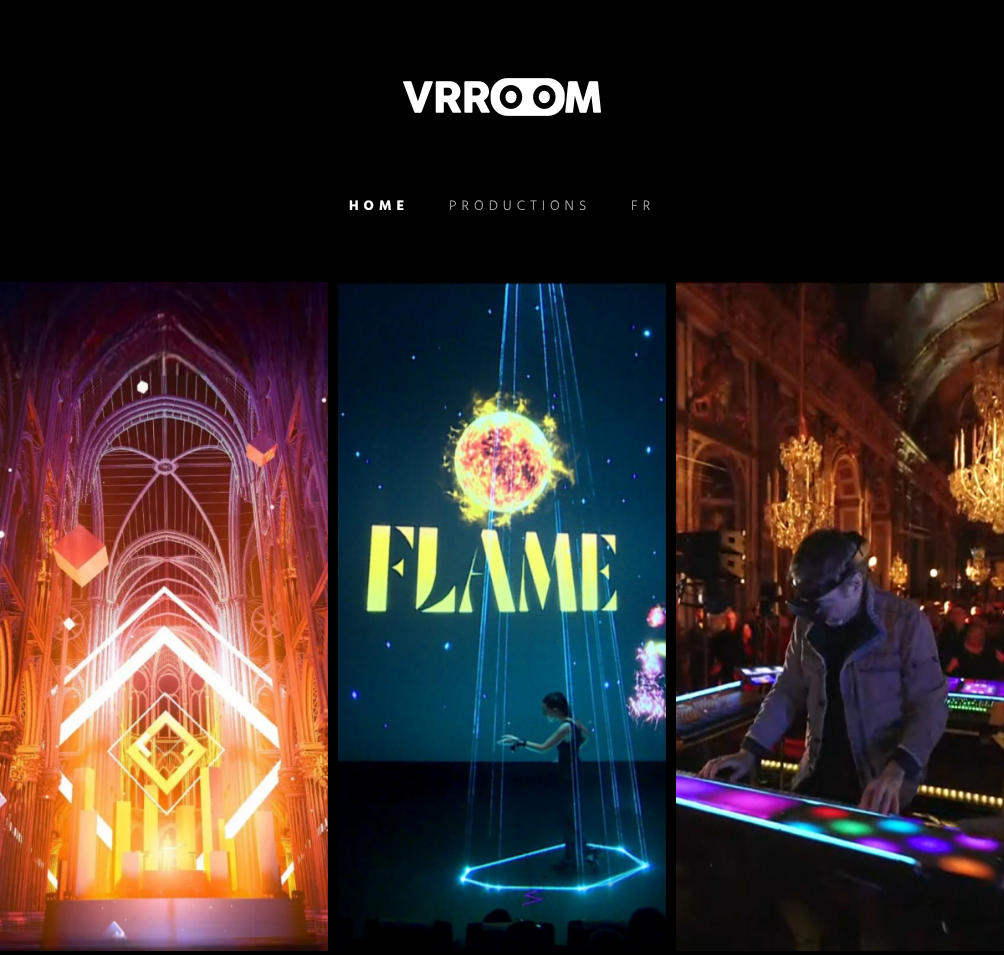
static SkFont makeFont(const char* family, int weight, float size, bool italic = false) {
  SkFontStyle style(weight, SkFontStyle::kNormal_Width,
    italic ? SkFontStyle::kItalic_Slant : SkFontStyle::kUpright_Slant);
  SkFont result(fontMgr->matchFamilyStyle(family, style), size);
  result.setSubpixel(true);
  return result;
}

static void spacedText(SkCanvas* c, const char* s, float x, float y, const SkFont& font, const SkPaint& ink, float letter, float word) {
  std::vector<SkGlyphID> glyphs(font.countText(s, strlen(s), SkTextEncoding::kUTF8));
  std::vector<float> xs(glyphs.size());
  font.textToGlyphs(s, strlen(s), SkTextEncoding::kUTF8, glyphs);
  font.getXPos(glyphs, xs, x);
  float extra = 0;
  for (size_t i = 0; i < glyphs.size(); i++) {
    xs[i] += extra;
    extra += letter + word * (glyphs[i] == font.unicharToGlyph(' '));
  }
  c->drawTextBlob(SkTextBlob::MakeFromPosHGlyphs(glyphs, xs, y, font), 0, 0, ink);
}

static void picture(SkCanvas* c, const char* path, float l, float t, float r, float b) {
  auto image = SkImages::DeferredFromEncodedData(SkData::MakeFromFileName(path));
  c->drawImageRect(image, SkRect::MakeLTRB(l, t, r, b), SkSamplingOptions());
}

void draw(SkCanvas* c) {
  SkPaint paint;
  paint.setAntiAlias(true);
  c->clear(0xff000000);
  picture(c, "img_01.png", 403, 78, 601, 116);
  SkFont face1 = makeFont("Hind Guntur", 700, 14);
  paint.setColor(0xffffffff);
  spacedText(c, "HOME", 349, 210, face1, paint, 5, 0);
  SkFont face2 = makeFont("Hind Guntur", 300, 14);
  paint.setColor(0xffb0b0b0);
  spacedText(c, "PRODUCTIONS", 449, 210, face2, paint, 5, 0);
  spacedText(c, "FR", 631, 210, face2, paint, 5, 0);
  picture(c, "img_02.png", 0, 282, 328, 951);
  picture(c, "img_03.png", 338, 282, 666, 951);
  picture(c, "img_04.png", 676, 282, 1004, 951);
}
